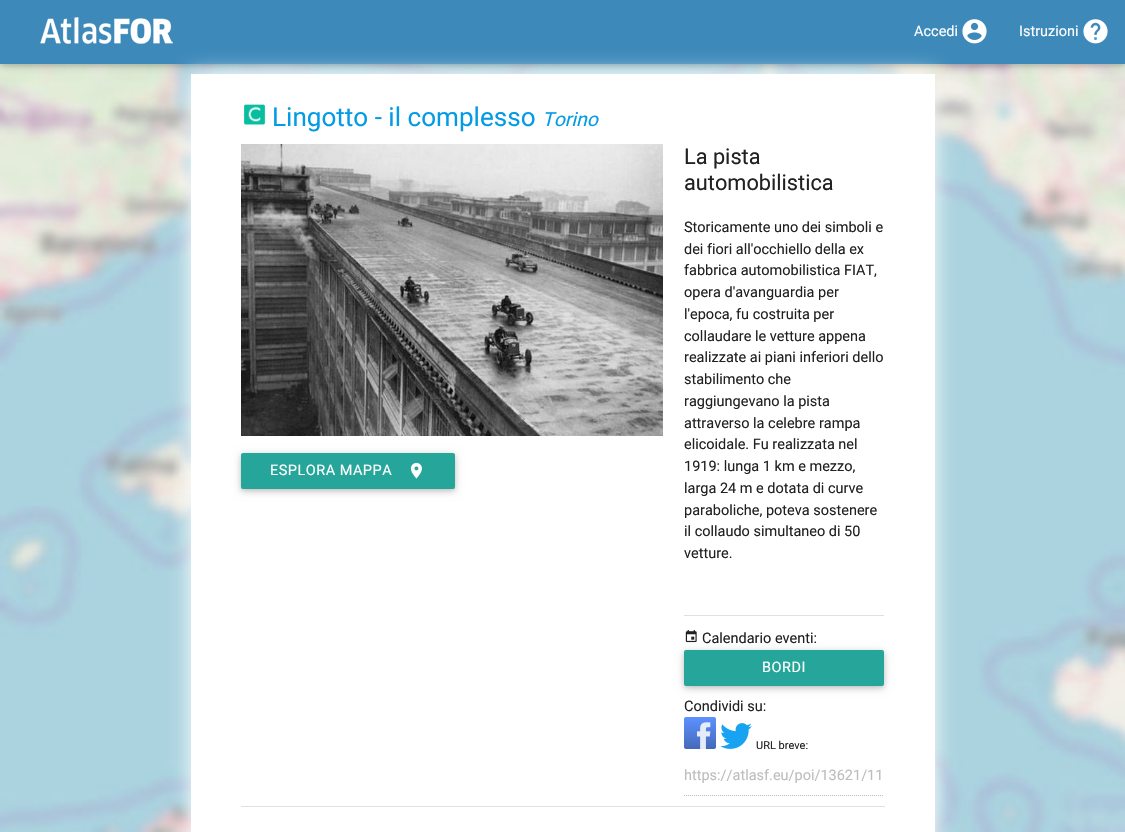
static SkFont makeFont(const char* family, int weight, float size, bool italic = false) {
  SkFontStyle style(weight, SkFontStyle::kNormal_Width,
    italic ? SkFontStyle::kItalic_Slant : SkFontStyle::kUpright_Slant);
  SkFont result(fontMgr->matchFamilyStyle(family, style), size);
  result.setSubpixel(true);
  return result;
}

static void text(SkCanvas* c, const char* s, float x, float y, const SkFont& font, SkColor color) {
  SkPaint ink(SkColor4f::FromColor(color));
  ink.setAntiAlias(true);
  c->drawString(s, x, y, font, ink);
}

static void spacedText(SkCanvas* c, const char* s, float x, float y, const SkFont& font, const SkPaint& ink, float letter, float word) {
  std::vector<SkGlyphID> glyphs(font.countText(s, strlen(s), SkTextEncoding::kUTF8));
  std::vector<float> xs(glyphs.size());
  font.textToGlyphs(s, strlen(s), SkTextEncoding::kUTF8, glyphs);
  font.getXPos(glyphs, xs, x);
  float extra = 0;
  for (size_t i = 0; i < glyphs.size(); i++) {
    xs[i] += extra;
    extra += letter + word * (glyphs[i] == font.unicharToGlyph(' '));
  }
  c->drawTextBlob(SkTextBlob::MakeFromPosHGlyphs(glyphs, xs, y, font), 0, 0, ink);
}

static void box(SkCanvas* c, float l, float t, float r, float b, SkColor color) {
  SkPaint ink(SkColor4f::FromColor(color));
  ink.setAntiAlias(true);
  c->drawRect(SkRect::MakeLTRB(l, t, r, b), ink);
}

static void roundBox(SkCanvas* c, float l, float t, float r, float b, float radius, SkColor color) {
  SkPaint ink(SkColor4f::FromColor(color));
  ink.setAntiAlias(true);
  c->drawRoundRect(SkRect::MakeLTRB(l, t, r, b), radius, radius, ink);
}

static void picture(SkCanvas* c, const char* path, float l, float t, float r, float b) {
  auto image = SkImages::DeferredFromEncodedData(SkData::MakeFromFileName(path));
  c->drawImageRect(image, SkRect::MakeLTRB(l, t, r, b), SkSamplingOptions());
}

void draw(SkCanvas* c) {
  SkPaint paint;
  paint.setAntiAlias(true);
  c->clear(0xffffffff);
  picture(c, "img_04.png", 0, 64, 1125, 832);
  paint.setColor(0x1f000000);
  paint.setMaskFilter(SkMaskFilter::MakeBlur(kNormal_SkBlurStyle, 5));
  c->drawRect(SkRect::MakeLTRB(0, 2, 1125, 66), paint);
  paint.setMaskFilter(nullptr);
  paint.setColor(0x29000000);
  paint.setMaskFilter(SkMaskFilter::MakeBlur(kNormal_SkBlurStyle, 2.5f));
  c->drawRect(SkRect::MakeLTRB(0, 2, 1125, 66), paint);
  paint.setMaskFilter(nullptr);
  box(c, 0, 0, 1125, 64, 0xff3c89ba);
  paint.setColor(0xffffffff);
  paint.setMaskFilter(SkMaskFilter::MakeBlur(kNormal_SkBlurStyle, 10));
  c->drawRect(SkRect::MakeLTRB(191, 74, 935, 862), paint);
  paint.setMaskFilter(nullptr);
  picture(c, "img_01.png", 40, 17, 173, 44);
  SkFont face1 = makeFont("Roboto", 400, 14.5f);
  text(c, "Accedi", 914, 36, face1, 0xffffffff);
  picture(c, "img_02.png", 962, 19, 987, 44);
  text(c, "Istruzioni", 1019, 36, face1, 0xffffffff);
  picture(c, "img_03.png", 1083, 19, 1108, 44);
  box(c, 191, 74, 935, 832, 0xffffffff);
  picture(c, "img_05.png", 244, 104, 266, 126);
  SkFont face2 = makeFont("Roboto", 400, 26.1f);
  text(c, "Lingotto - il complesso", 272, 126, face2, 0xff039be5);
  SkFont face3 = makeFont("Roboto", 400, 19.5f, true);
  text(c, "Torino", 542, 126, face3, 0xff039be5);
  picture(c, "img_06.png", 241, 144, 663, 436);
  paint.setColor(0x1f000000);
  paint.setMaskFilter(SkMaskFilter::MakeBlur(kNormal_SkBlurStyle, 5));
  c->drawRoundRect(SkRect::MakeLTRB(241, 455, 455, 491), 2, 2, paint);
  paint.setMaskFilter(nullptr);
  paint.setColor(0x29000000);
  paint.setMaskFilter(SkMaskFilter::MakeBlur(kNormal_SkBlurStyle, 2.5f));
  c->drawRoundRect(SkRect::MakeLTRB(241, 455, 455, 491), 2, 2, paint);
  paint.setMaskFilter(nullptr);
  roundBox(c, 241, 453, 455, 489, 2, 0xff26a69a);
  paint.setColor(0xffffffff);
  spacedText(c, "ESPLORA MAPPA", 270, 475, face1, paint, 0.5f, 0);
  picture(c, "img_07.png", 410, 462, 422, 479);
  SkFont face4 = makeFont("Roboto", 400, 21.75f);
  text(c, "La pista", 684, 164, face4, 0xff212121);
  text(c, "automobilistica", 684, 190, face4, 0xff212121);
  text(c, "Storicamente uno dei simboli e", 684, 232, face1, 0xff212121);
  text(c, "dei fiori all'occhiello della ex", 684, 254, face1, 0xff212121);
  text(c, "fabbrica automobilistica FIAT,", 684, 275, face1, 0xff212121);
  text(c, "opera d'avanguardia per", 684, 297, face1, 0xff212121);
  text(c, "l'epoca, fu costruita per", 684, 319, face1, 0xff212121);
  text(c, "collaudare le vetture appena", 684, 341, face1, 0xff212121);
  text(c, "realizzate ai piani inferiori dello", 684, 362, face1, 0xff212121);
  text(c, "stabilimento che", 684, 384, face1, 0xff212121);
  text(c, "raggiungevano la pista", 684, 406, face1, 0xff212121);
  text(c, "attraverso la celebre rampa", 684, 428, face1, 0xff212121);
  text(c, "elicoidale. Fu realizzata nel", 684, 449, face1, 0xff212121);
  text(c, "1919: lunga 1 km e mezzo,", 684, 471, face1, 0xff212121);
  text(c, "larga 24 m e dotata di curve", 684, 493, face1, 0xff212121);
  text(c, "paraboliche, poteva sostenere", 684, 515, face1, 0xff212121);
  text(c, "il collaudo simultaneo di 50", 684, 536, face1, 0xff212121);
  text(c, "vetture.", 684, 558, face1, 0xff212121);
  box(c, 684, 615, 884, 616, 0xffe0e0e0);
  picture(c, "img_08.png", 685, 630, 697, 643);
  text(c, "Calendario eventi:", 702, 643, face1, 0xff212121);
  paint.setColor(0x1f000000);
  paint.setMaskFilter(SkMaskFilter::MakeBlur(kNormal_SkBlurStyle, 5));
  c->drawRoundRect(SkRect::MakeLTRB(684, 652, 884, 688), 2, 2, paint);
  paint.setMaskFilter(nullptr);
  paint.setColor(0x29000000);
  paint.setMaskFilter(SkMaskFilter::MakeBlur(kNormal_SkBlurStyle, 2.5f));
  c->drawRoundRect(SkRect::MakeLTRB(684, 652, 884, 688), 2, 2, paint);
  paint.setMaskFilter(nullptr);
  roundBox(c, 684, 650, 884, 686, 2, 0xff26a69a);
  paint.setColor(0xffffffff);
  spacedText(c, "BORDI", 762, 672, face1, paint, 0.5f, 0);
  text(c, "Condividi su:", 684, 711, face1, 0xff212121);
  picture(c, "img_09.png", 684, 717, 716, 749);
  picture(c, "img_10.png", 720, 723, 752, 749);
  SkFont face5 = makeFont("Roboto", 400, 11);
  text(c, "URL breve:", 756, 749, face5, 0xff212121);
  paint.setStyle(SkPaint::kStroke_Style);
  paint.setStrokeWidth(1);
  paint.setColor(0xffbdbdbd);
  paint.setPathEffect(SkDashPathEffect::Make({{1, 1}}, 0));
  c->drawPath(SkPathBuilder().moveTo(684, 795.5f).lineTo(884, 795.5f).detach(), paint);
  paint.setPathEffect(nullptr);
  text(c, "https://atlasf.eu/poi/13621/11", 684, 780, face1, 0xffbdbdbd);
  box(c, 241, 806, 885, 807, 0xffe0e0e0);
}
